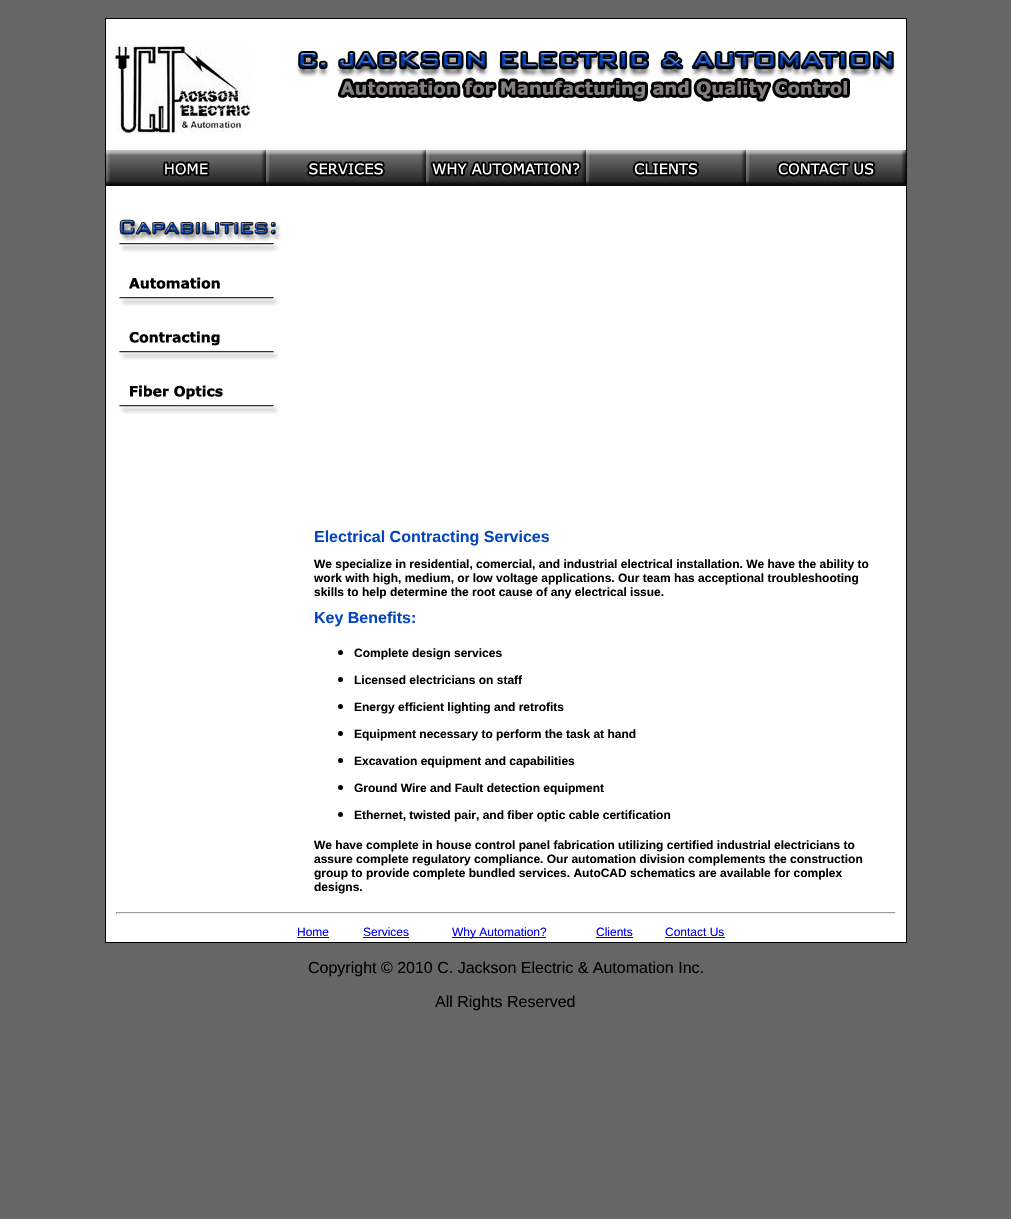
static SkFont makeFont(const char* family, int weight, float size, bool italic = false) {
  SkFontStyle style(weight, SkFontStyle::kNormal_Width,
    italic ? SkFontStyle::kItalic_Slant : SkFontStyle::kUpright_Slant);
  SkFont result(fontMgr->matchFamilyStyle(family, style), size);
  result.setSubpixel(true);
  return result;
}

static void text(SkCanvas* c, const char* s, float x, float y, const SkFont& font, SkColor color) {
  SkPaint ink(SkColor4f::FromColor(color));
  ink.setAntiAlias(true);
  c->drawString(s, x, y, font, ink);
}

static void box(SkCanvas* c, float l, float t, float r, float b, SkColor color) {
  SkPaint ink(SkColor4f::FromColor(color));
  ink.setAntiAlias(true);
  c->drawRect(SkRect::MakeLTRB(l, t, r, b), ink);
}

static void picture(SkCanvas* c, const char* path, float l, float t, float r, float b) {
  auto image = SkImages::DeferredFromEncodedData(SkData::MakeFromFileName(path));
  c->drawImageRect(image, SkRect::MakeLTRB(l, t, r, b), SkSamplingOptions());
}

void draw(SkCanvas* c) {
  SkPaint paint;
  paint.setAntiAlias(true);
  c->clear(0xff666666);
  paint.setColor(0xffffffff);
  c->drawRect(SkRect::MakeLTRB(105.5f, 18.5f, 906.5f, 942.5f), paint);
  paint.setStyle(SkPaint::kStroke_Style);
  paint.setStrokeWidth(1);
  paint.setColor(0xff000000);
  c->drawRect(SkRect::MakeLTRB(105.5f, 18.5f, 906.5f, 942.5f), paint);
  picture(c, "img_01.png", 114, 44, 896, 134);
  picture(c, "img_02.png", 106, 150, 266, 186);
  picture(c, "img_03.png", 266, 150, 426, 186);
  picture(c, "img_04.png", 426, 150, 586, 186);
  picture(c, "img_05.png", 586, 150, 746, 186);
  picture(c, "img_06.png", 746, 150, 906, 186);
  picture(c, "img_07.png", 118, 219, 281, 252);
  picture(c, "img_08.png", 119, 277, 279, 306);
  picture(c, "img_09.png", 119, 331, 279, 360);
  picture(c, "img_10.png", 119, 385, 279, 414);
  SkFont face1 = makeFont("Liberation Sans", 700, 16);
  text(c, "Electrical Contracting Services", 314, 542, face1, 0xff0546be);
  SkFont face2 = makeFont("Liberation Sans", 700, 12);
  text(c, "We specialize in residential, comercial, and industrial electrical installation. We have the ability to", 314, 568, face2, 0xff000000);
  text(c, "work with high, medium, or low voltage applications. Our team has acceptional troubleshooting", 314, 582, face2, 0xff000000);
  text(c, "skills to help determine the root cause of any electrical issue.", 314, 596, face2, 0xff000000);
  text(c, "Key Benefits:", 314, 623, face1, 0xff0546be);
  paint.setStyle(SkPaint::kFill_Style);
  c->drawCircle(340.5f, 652.5f, 2.5f, paint);
  text(c, "Complete design services", 354, 657, face2, 0xff000000);
  c->drawCircle(340.5f, 679.5f, 2.5f, paint);
  text(c, "Licensed electricians on staff", 354, 684, face2, 0xff000000);
  c->drawCircle(340.5f, 706.5f, 2.5f, paint);
  text(c, "Energy efficient lighting and retrofits", 354, 711, face2, 0xff000000);
  c->drawCircle(340.5f, 733.5f, 2.5f, paint);
  text(c, "Equipment necessary to perform the task at hand", 354, 738, face2, 0xff000000);
  c->drawCircle(340.5f, 760.5f, 2.5f, paint);
  text(c, "Excavation equipment and capabilities", 354, 765, face2, 0xff000000);
  c->drawCircle(340.5f, 787.5f, 2.5f, paint);
  text(c, "Ground Wire and Fault detection equipment", 354, 792, face2, 0xff000000);
  c->drawCircle(340.5f, 814.5f, 2.5f, paint);
  text(c, "Ethernet, twisted pair, and fiber optic cable certification", 354, 819, face2, 0xff000000);
  text(c, "We have complete in house control panel fabrication utilizing certified industrial electricians to", 314, 849, face2, 0xff000000);
  text(c, "assure complete regulatory compliance. Our automation division complements the construction", 314, 863, face2, 0xff000000);
  text(c, "group to provide complete bundled services. AutoCAD schematics are available for complex", 314, 877, face2, 0xff000000);
  text(c, "designs.", 314, 891, face2, 0xff000000);
  box(c, 116, 912, 896, 913, 0xff9f9f9f);
  box(c, 895, 912, 896, 914, 0xffeeeeee);
  box(c, 116, 913, 896, 914, 0xffeeeeee);
  box(c, 116, 912, 117, 914, 0xff9f9f9f);
  SkFont face3 = makeFont("Liberation Sans", 400, 12);
  text(c, "Home", 297, 936, face3, 0xff0000ee);
  box(c, 297, 937, 329, 938, 0xff0000ee);
  text(c, "Services", 363, 936, face3, 0xff0000ee);
  box(c, 363, 937, 409, 938, 0xff0000ee);
  box(c, 452, 937, 546, 938, 0xff0000ee);
  text(c, "Why Automation?", 452, 936, face3, 0xff0000ee);
  text(c, "Clients", 596, 936, face3, 0xff0000ee);
  box(c, 596, 937, 633, 938, 0xff0000ee);
  text(c, "Contact Us", 665, 936, face3, 0xff0000ee);
  box(c, 665, 937, 725, 938, 0xff0000ee);
  SkFont face4 = makeFont("Liberation Sans", 400, 16);
  text(c, "Copyright © 2010 C. Jackson Electric & Automation Inc.", 308, 973, face4, 0xff000000);
  text(c, "All Rights Reserved", 435, 1007, face4, 0xff000000);
}
